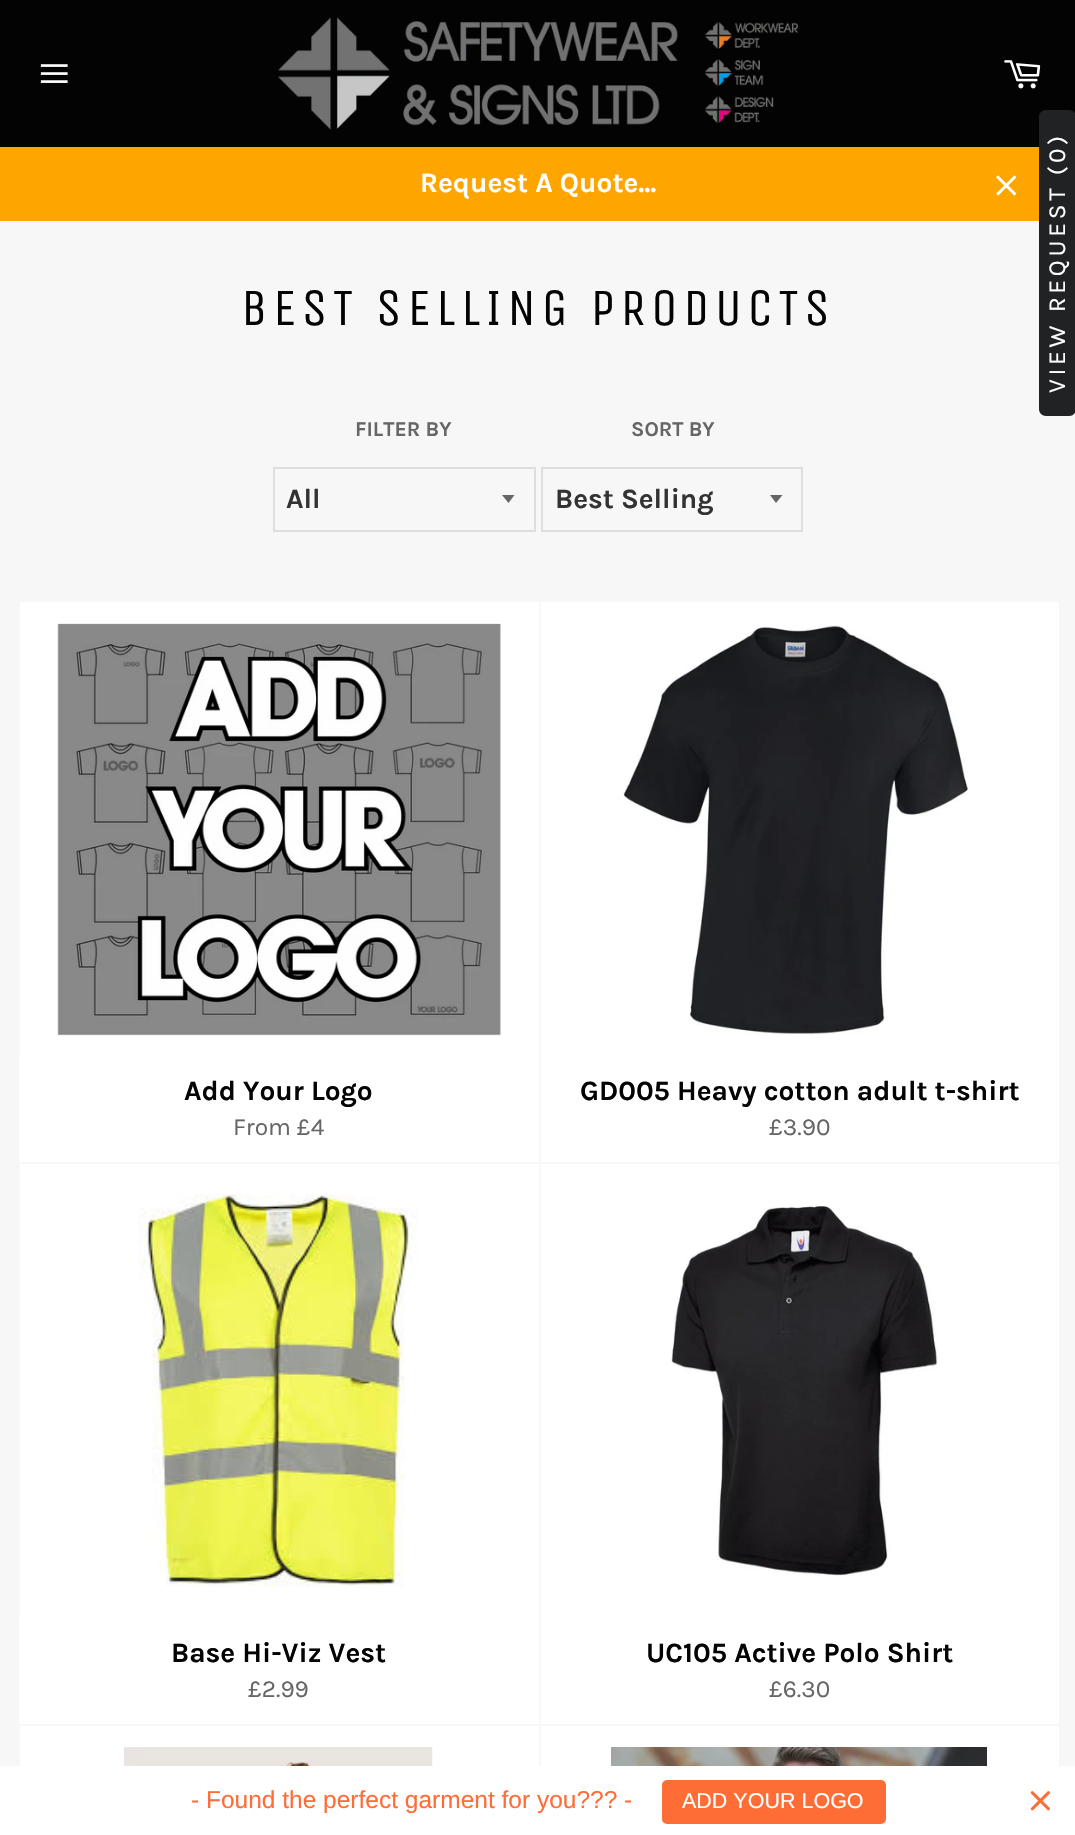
static SkFont makeFont(const char* family, int weight, float size, bool italic = false) {
  SkFontStyle style(weight, SkFontStyle::kNormal_Width,
    italic ? SkFontStyle::kItalic_Slant : SkFontStyle::kUpright_Slant);
  SkFont result(fontMgr->matchFamilyStyle(family, style), size);
  result.setSubpixel(true);
  return result;
}

static void text(SkCanvas* c, const char* s, float x, float y, const SkFont& font, SkColor color) {
  SkPaint ink(SkColor4f::FromColor(color));
  ink.setAntiAlias(true);
  c->drawString(s, x, y, font, ink);
}

static void spacedText(SkCanvas* c, const char* s, float x, float y, const SkFont& font, const SkPaint& ink, float letter, float word) {
  std::vector<SkGlyphID> glyphs(font.countText(s, strlen(s), SkTextEncoding::kUTF8));
  std::vector<float> xs(glyphs.size());
  font.textToGlyphs(s, strlen(s), SkTextEncoding::kUTF8, glyphs);
  font.getXPos(glyphs, xs, x);
  float extra = 0;
  for (size_t i = 0; i < glyphs.size(); i++) {
    xs[i] += extra;
    extra += letter + word * (glyphs[i] == font.unicharToGlyph(' '));
  }
  c->drawTextBlob(SkTextBlob::MakeFromPosHGlyphs(glyphs, xs, y, font), 0, 0, ink);
}

static void box(SkCanvas* c, float l, float t, float r, float b, SkColor color) {
  SkPaint ink(SkColor4f::FromColor(color));
  ink.setAntiAlias(true);
  c->drawRect(SkRect::MakeLTRB(l, t, r, b), ink);
}

static void roundBox(SkCanvas* c, float l, float t, float r, float b, float radius, SkColor color) {
  SkPaint ink(SkColor4f::FromColor(color));
  ink.setAntiAlias(true);
  c->drawRoundRect(SkRect::MakeLTRB(l, t, r, b), radius, radius, ink);
}

static void picture(SkCanvas* c, const char* path, float l, float t, float r, float b) {
  auto image = SkImages::DeferredFromEncodedData(SkData::MakeFromFileName(path));
  c->drawImageRect(image, SkRect::MakeLTRB(l, t, r, b), SkSamplingOptions());
}

void draw(SkCanvas* c) {
  SkPaint paint;
  paint.setAntiAlias(true);
  c->clear(0xfff7f7f7);
  box(c, 0, 0, 1075, 147, 0xff030303);
  picture(c, "img_01.png", 40, 64, 68, 83);
  picture(c, "img_02.png", 278, 17, 798, 130);
  picture(c, "img_03.png", 1004, 60, 1041, 89);
  box(c, 0, 147, 1039, 221, 0xffffa500);
  SkFont face1 = makeFont("Karla", 700, 28);
  text(c, "Request A Quote...", 420, 192, face1, 0xffffffff);
  picture(c, "img_04.png", 996, 175, 1017, 196);
  paint.setColor(0xff202223);
  c->drawPath(SkPathBuilder().moveTo(1039, 409).lineTo(1039, 117).cubicTo(1039, 113, 1042, 110, 1046, 110).lineTo(1069, 110).cubicTo(1073, 110, 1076, 113, 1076, 117).lineTo(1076, 409).cubicTo(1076, 413, 1073, 416, 1069, 416).lineTo(1046, 416).cubicTo(1042, 416, 1039, 413, 1039, 409).close().detach(), paint);
  SkFont face2 = makeFont("Karla", 400, 24.5f);
  paint.setColor(0xffffffff);
  c->save();
  c->rotate(-90, 1065, 393);
  spacedText(c, "VIEW REQUEST (0)", 1065, 393, face2, paint, 3.7f, 0);
  c->restore();
  SkFont face3 = makeFont("Unica One", 400, 52.5f);
  paint.setColor(0xff030303);
  spacedText(c, "BEST SELLING PRODUCTS", 241, 325, face3, paint, 5.25f, 0);
  SkFont face4 = makeFont("Karla", 700, 21);
  text(c, "FILTER BY", 355, 436, face4, 0xff666666);
  paint.setColor(0xff666666);
  c->drawPath(SkPathBuilder().moveTo(502, 495).lineTo(508.5f, 503).lineTo(514.5f, 495).close().detach(), paint);
  paint.setStyle(SkPaint::kStroke_Style);
  paint.setStrokeWidth(2);
  paint.setColor(0xffdedede);
  c->drawRect(SkRect::MakeLTRB(274, 468, 535, 531), paint);
  text(c, "All", 286, 508, face1, 0xff333333);
  text(c, "SORT BY", 631, 436, face4, 0xff666666);
  paint.setStyle(SkPaint::kFill_Style);
  paint.setColor(0xff666666);
  c->drawPath(SkPathBuilder().moveTo(770, 495).lineTo(776, 503).lineTo(782.5f, 495).close().detach(), paint);
  paint.setStyle(SkPaint::kStroke_Style);
  paint.setColor(0xffdedede);
  c->drawRect(SkRect::MakeLTRB(542, 468, 802, 531), paint);
  text(c, "Best Selling", 555, 508, face1, 0xff333333);
  box(c, 20, 602, 539, 1055, 0xffffffff);
  picture(c, "img_05.png", 57, 623, 501, 1036);
  box(c, 19, 1055, 539, 1162, 0xffffffff);
  text(c, "Add Your Logo", 184, 1100, face1, 0xff030303);
  text(c, "From £4", 233, 1135, face2, 0xff666666);
  box(c, 541, 602, 1059, 1162, 0xffffffff);
  picture(c, "img_06.png", 623, 624, 970, 1035);
  text(c, "GD005 Heavy cotton adult t-shirt", 580, 1100, face1, 0xff030303);
  text(c, "£3.90", 769, 1135, face2, 0xff666666);
  box(c, 20, 1164, 539, 1617, 0xffffffff);
  picture(c, "img_07.png", 138, 1194, 418, 1588);
  box(c, 19, 1617, 539, 1724, 0xffffffff);
  text(c, "Base Hi-Viz Vest", 171, 1662, face1, 0xff030303);
  text(c, "£2.99", 248, 1697, face2, 0xff666666);
  box(c, 541, 1164, 1059, 1724, 0xffffffff);
  picture(c, "img_08.png", 671, 1206, 938, 1576);
  text(c, "UC105 Active Polo Shirt", 646, 1662, face1, 0xff030303);
  text(c, "£6.30", 769, 1697, face2, 0xff666666);
  box(c, 20, 1726, 539, 1766, 0xffffffff);
  picture(c, "img_09.png", 124, 1747, 433, 1766);
  box(c, 541, 1726, 1059, 1766, 0xffffffff);
  picture(c, "img_10.png", 611, 1747, 987, 1766);
  box(c, 0, 1766, 1075, 1835, 0xffffffff);
  SkFont face5 = makeFont("Liberation Sans", 400, 24.5f);
  text(c, "- Found the perfect garment for you?\077? -", 191, 1808, face5, 0xffff6d37);
  roundBox(c, 662, 1780, 886, 1824, 5, 0xffff6d37);
  SkFont face6 = makeFont("Liberation Sans", 400, 21.5f);
  text(c, "ADD YOUR LOGO", 682, 1808, face6, 0xffffffff);
  picture(c, "img_11.png", 1030, 1791, 1050, 1811);
}
